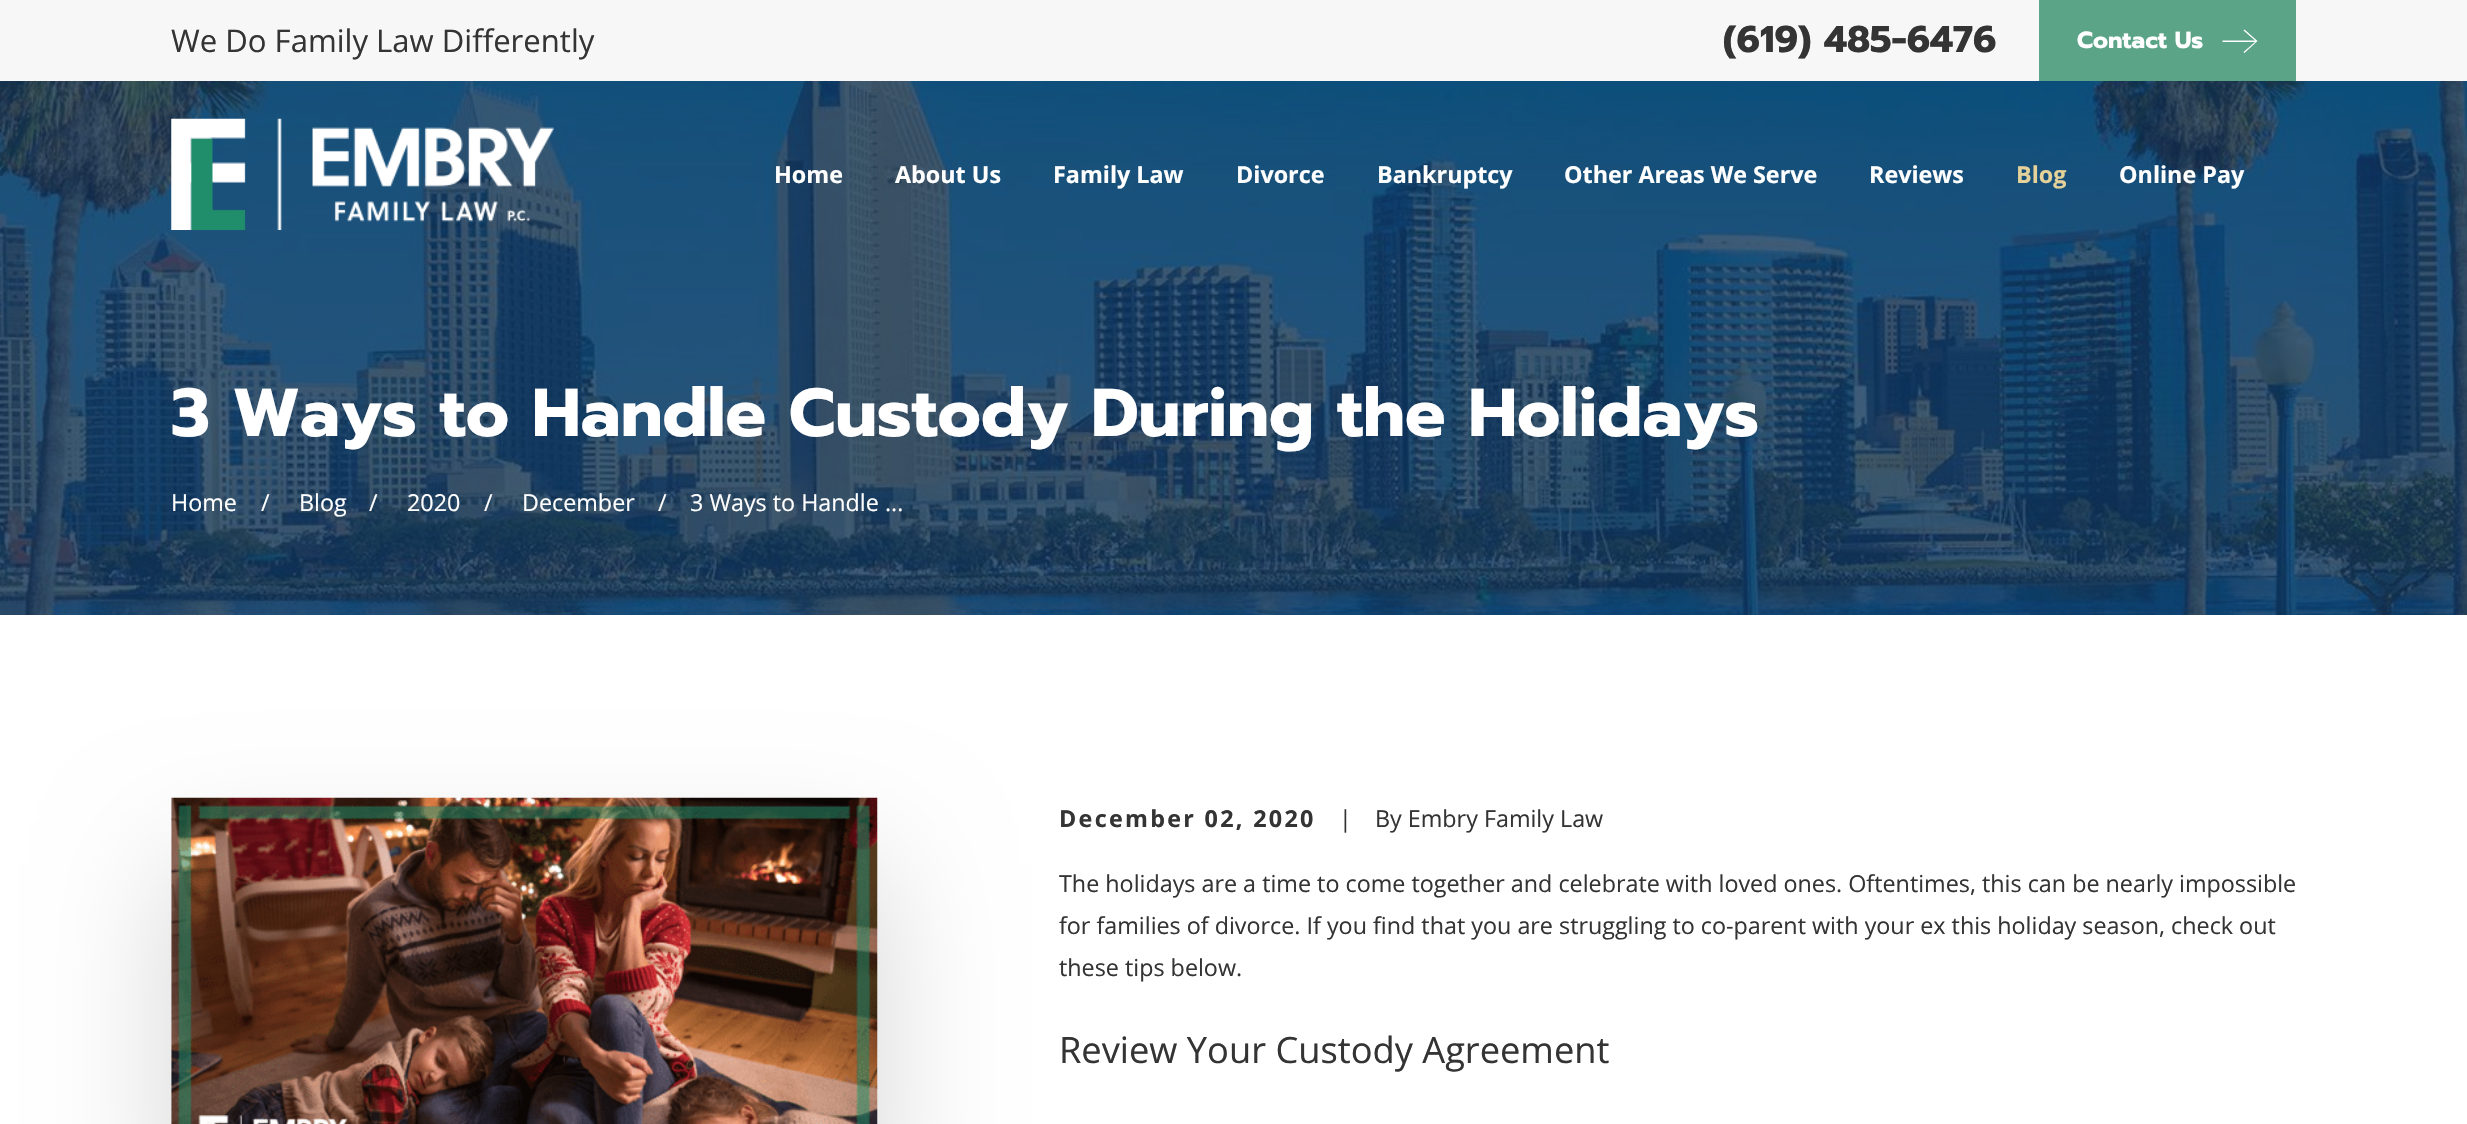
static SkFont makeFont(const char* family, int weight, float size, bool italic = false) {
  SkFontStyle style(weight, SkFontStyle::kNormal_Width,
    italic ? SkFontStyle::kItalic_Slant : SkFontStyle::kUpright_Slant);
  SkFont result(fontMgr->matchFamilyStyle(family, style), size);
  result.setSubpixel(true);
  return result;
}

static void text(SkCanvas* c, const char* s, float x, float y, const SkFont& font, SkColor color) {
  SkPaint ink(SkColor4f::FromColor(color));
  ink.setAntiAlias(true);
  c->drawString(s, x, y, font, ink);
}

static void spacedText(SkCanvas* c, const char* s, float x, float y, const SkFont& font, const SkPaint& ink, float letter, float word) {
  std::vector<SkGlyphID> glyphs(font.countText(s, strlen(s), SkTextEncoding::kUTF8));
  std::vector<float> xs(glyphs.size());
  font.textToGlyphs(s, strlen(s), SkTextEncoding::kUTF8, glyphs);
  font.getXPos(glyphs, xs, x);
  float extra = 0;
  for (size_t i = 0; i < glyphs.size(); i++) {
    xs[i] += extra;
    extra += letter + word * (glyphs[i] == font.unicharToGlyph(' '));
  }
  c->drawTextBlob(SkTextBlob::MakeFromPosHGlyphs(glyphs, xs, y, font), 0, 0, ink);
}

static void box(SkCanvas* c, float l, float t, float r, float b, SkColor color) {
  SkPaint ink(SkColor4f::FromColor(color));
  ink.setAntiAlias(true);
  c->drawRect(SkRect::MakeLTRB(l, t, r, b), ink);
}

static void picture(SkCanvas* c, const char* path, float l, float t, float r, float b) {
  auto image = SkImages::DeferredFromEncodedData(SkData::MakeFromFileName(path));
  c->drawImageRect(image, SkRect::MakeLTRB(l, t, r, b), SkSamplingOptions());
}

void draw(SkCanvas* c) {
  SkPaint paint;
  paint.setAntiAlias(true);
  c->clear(0xffffffff);
  box(c, 0, 0, 2467, 81, 0xfff7f7f7);
  SkFont face1 = makeFont("Open Sans", 400, 31.1f);
  text(c, "We Do Family Law Differently", 171, 52, face1, 0xff343434);
  SkFont face2 = makeFont("Prompt", 700, 37.25f);
  text(c, "(619) 485-6476", 1723, 52, face2, 0xff343434);
  box(c, 2039, 0, 2296, 81, 0xff5ba488);
  SkFont face3 = makeFont("Prompt", 700, 23.32f);
  text(c, "Contact Us", 2077, 48, face3, 0xffffffff);
  paint.setColor(0xffffffff);
  c->drawPath(SkPathBuilder().moveTo(2243.5f, 52).lineTo(2244.5f, 53).lineTo(2257.5f, 41).lineTo(2244.5f, 29.5f).lineTo(2243.5f, 30.5f).lineTo(2255, 40.5f).lineTo(2222.5f, 40.5f).lineTo(2222.5f, 42).lineTo(2255, 42).close().detach(), paint);
  box(c, 0, 81, 2467, 615, 0xff134579);
  picture(c, "img_02.png", 0, 81, 2467, 615);
  picture(c, "img_01.png", 171, 118, 554, 230);
  SkFont face4 = makeFont("Open Sans", 700, 23.32f);
  text(c, "Home", 774, 183, face4, 0xffffffff);
  text(c, "About Us", 895, 183, face4, 0xffffffff);
  text(c, "Family Law", 1053, 183, face4, 0xffffffff);
  text(c, "Divorce", 1236, 183, face4, 0xffffffff);
  text(c, "Bankruptcy", 1377, 183, face4, 0xffffffff);
  text(c, "Other Areas We Serve", 1564, 183, face4, 0xffffffff);
  text(c, "Reviews", 1869, 183, face4, 0xffffffff);
  text(c, "Blog", 2016, 183, face4, 0xffe5d19a);
  text(c, "Online Pay", 2119, 183, face4, 0xffffffff);
  SkFont face5 = makeFont("Prompt", 700, 67.6f);
  text(c, "3 Ways to Handle Custody During the Holidays", 171, 436, face5, 0xffffffff);
  SkFont face6 = makeFont("Open Sans", 400, 23.32f);
  text(c, "Home", 171, 511, face6, 0xffffffff);
  text(c, "/", 261, 511, face6, 0xffffffff);
  text(c, "Blog", 299, 511, face6, 0xffffffff);
  text(c, "/", 369, 511, face6, 0xffffffff);
  text(c, "2020", 407, 511, face6, 0xffffffff);
  text(c, "/", 484, 511, face6, 0xffffffff);
  text(c, "December", 522, 511, face6, 0xffffffff);
  text(c, "/", 658, 511, face6, 0xffffffff);
  text(c, "3 Ways to Handle ...", 690, 511, face6, 0xffffffff);
  paint.setColor(0x29000000);
  paint.setMaskFilter(SkMaskFilter::MakeBlur(kNormal_SkBlurStyle, 64));
  c->drawRect(SkRect::MakeLTRB(171, 863, 878, 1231), paint);
  paint.setMaskFilter(nullptr);
  picture(c, "img_03.png", 171, 797, 878, 1124);
  paint.setColor(0xff343434);
  spacedText(c, "December 02, 2020", 1059, 827, face4, paint, 2.3f, 0);
  text(c, "|", 1339, 827, face6, 0xff343434);
  text(c, "By Embry Family Law", 1375, 827, face6, 0xff343434);
  text(c, "The holidays are a time to come together and celebrate with loved ones. Oftentimes, this can be nearly impossible", 1059, 892, face6, 0xff343434);
  text(c, "for families of divorce. If you find that you are struggling to co-parent with your ex this holiday season, check out", 1059, 934, face6, 0xff343434);
  text(c, "these tips below.", 1059, 976, face6, 0xff343434);
  SkFont face7 = makeFont("Open Sans", 400, 36.25f);
  text(c, "Review Your Custody Agreement", 1059, 1063, face7, 0xff343434);
}
